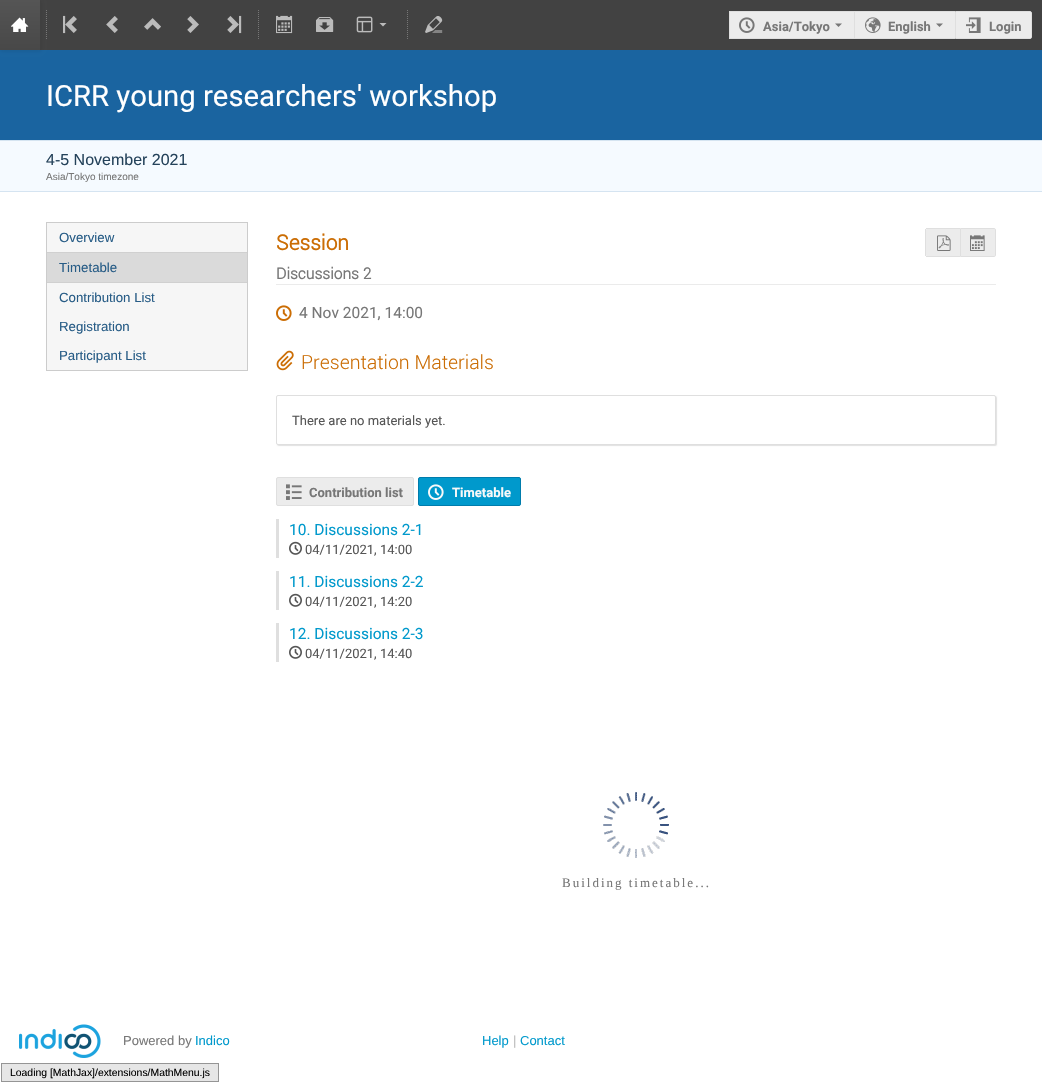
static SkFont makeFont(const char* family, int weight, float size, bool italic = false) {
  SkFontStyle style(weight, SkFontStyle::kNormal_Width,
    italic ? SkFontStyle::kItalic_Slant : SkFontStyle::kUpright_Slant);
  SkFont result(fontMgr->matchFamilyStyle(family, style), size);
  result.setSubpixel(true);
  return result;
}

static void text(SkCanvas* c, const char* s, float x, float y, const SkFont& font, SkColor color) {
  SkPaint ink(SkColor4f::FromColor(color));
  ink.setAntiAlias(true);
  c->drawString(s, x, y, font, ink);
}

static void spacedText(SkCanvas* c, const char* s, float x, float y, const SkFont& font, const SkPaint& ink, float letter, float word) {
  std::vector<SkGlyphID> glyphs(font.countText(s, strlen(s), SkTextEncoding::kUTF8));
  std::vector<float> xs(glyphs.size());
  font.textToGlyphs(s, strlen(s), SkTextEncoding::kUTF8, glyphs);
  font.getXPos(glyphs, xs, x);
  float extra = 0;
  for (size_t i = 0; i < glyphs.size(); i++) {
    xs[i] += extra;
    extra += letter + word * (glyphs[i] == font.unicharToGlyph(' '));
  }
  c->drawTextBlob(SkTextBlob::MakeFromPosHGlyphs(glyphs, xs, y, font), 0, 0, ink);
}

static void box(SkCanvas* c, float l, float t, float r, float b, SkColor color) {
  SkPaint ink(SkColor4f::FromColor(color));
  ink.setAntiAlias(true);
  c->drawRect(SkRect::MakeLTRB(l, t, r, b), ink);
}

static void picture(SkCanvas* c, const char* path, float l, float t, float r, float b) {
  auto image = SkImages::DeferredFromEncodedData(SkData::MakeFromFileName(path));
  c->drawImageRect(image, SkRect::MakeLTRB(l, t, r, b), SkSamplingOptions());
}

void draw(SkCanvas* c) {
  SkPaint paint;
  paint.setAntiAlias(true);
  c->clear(0xffffffff);
  box(c, 40, 0, 1042, 50, 0xff424242);
  box(c, 0, 50, 1042, 140, 0xff1a64a0);
  paint.setColor(0x1a141414);
  paint.setMaskFilter(SkMaskFilter::MakeBlur(kNormal_SkBlurStyle, 2));
  c->drawRect(SkRect::MakeLTRB(1, 1, 41, 51), paint);
  paint.setMaskFilter(nullptr);
  {
    const SkColor colors[] = {0xff555555, 0xff484848};
    const float stops[] = {0, 1};
    const SkPoint ends[] = {{20, 0}, {20, 50}};
    paint.setShader(SkGradientShader::MakeLinear(ends, colors, stops, 2, SkTileMode::kClamp));
    paint.setAlpha(255);
  }
  c->drawRect(SkRect::MakeLTRB(0, 0, 40, 50), paint);
  picture(c, "img_01.png", 11, 17, 29, 32);
  paint.setStyle(SkPaint::kStroke_Style);
  paint.setStrokeWidth(1);
  paint.setShader(nullptr);
  paint.setColor(0xff777777);
  paint.setPathEffect(SkDashPathEffect::Make({{1, 1}}, 0));
  c->drawPath(SkPathBuilder().moveTo(46.5f, 10).lineTo(46.5f, 40).detach(), paint);
  paint.setPathEffect(nullptr);
  picture(c, "img_02.png", 63, 15, 77, 34);
  picture(c, "img_03.png", 106, 16, 118, 33);
  picture(c, "img_04.png", 144, 18, 161, 30);
  picture(c, "img_05.png", 187, 16, 199, 33);
  picture(c, "img_06.png", 227, 15, 242, 34);
  paint.setPathEffect(SkDashPathEffect::Make({{1, 1}}, 0));
  c->drawPath(SkPathBuilder().moveTo(258.5f, 10).lineTo(258.5f, 40).detach(), paint);
  paint.setPathEffect(nullptr);
  picture(c, "img_07.png", 276, 15, 293, 34);
  picture(c, "img_08.png", 316, 17, 334, 32);
  picture(c, "img_09.png", 356, 16, 373, 33);
  paint.setStyle(SkPaint::kFill_Style);
  paint.setColor(0xffbbbbbb);
  c->drawPath(SkPathBuilder().moveTo(379.5f, 23).lineTo(383, 26.5f).lineTo(386.5f, 23).close().detach(), paint);
  paint.setStyle(SkPaint::kStroke_Style);
  paint.setColor(0xff777777);
  paint.setPathEffect(SkDashPathEffect::Make({{1, 1}}, 0));
  c->drawPath(SkPathBuilder().moveTo(407.5f, 10).lineTo(407.5f, 40).detach(), paint);
  paint.setPathEffect(nullptr);
  picture(c, "img_10.png", 425, 16, 443, 33);
  box(c, 730, 12, 854, 38, 0xffececec);
  box(c, 729, 11, 955, 12, 0xffdfdfdf);
  box(c, 729, 38, 955, 39, 0xffdfdfdf);
  box(c, 729, 11, 730, 39, 0xffdfdfdf);
  picture(c, "img_11.png", 739, 17, 755, 33);
  SkFont face1 = makeFont("Roboto", 700, 13);
  text(c, "Asia/Tokyo", 763, 31, face1, 0xff777777);
  paint.setStyle(SkPaint::kFill_Style);
  c->drawPath(SkPathBuilder().moveTo(835, 23.5f).lineTo(838.5f, 27).lineTo(842, 23.5f).close().detach(), paint);
  box(c, 855, 12, 955, 38, 0xffececec);
  box(c, 854, 11, 855, 39, 0xffdfdfdf);
  picture(c, "img_12.png", 865, 17, 881, 33);
  text(c, "English", 888, 31, face1, 0xff777777);
  c->drawPath(SkPathBuilder().moveTo(936, 23.5f).lineTo(939.5f, 27).lineTo(943, 23.5f).close().detach(), paint);
  paint.setColor(0xffececec);
  c->drawPath(SkPathBuilder().moveTo(955.5f, 11.5f).lineTo(1030, 11.5f).cubicTo(1031, 11.5f, 1031.5f, 12, 1031.5f, 13).lineTo(1031.5f, 37).cubicTo(1031.5f, 38, 1031, 38.5f, 1030, 38.5f).lineTo(955.5f, 38.5f).close().detach(), paint);
  paint.setStyle(SkPaint::kStroke_Style);
  paint.setColor(0xffdfdfdf);
  c->drawPath(SkPathBuilder().moveTo(955.5f, 11.5f).lineTo(1030, 11.5f).cubicTo(1031, 11.5f, 1031.5f, 12, 1031.5f, 13).lineTo(1031.5f, 37).cubicTo(1031.5f, 38, 1031, 38.5f, 1030, 38.5f).lineTo(955.5f, 38.5f).close().detach(), paint);
  picture(c, "img_13.png", 966, 17, 981, 33);
  text(c, "Login", 989, 31, face1, 0xff777777);
  SkFont face2 = makeFont("Roboto", 400, 29.3f);
  text(c, "ICRR young researchers' workshop", 46, 106, face2, 0xffffffff);
  box(c, 0, 141, 1042, 191, 0xfff5faff);
  box(c, 0, 140, 1042, 141, 0xffd5e4f1);
  box(c, 0, 191, 1042, 192, 0xffd5e4f1);
  SkFont face3 = makeFont("Liberation Sans", 400, 16);
  text(c, "4-5 November 2021", 46, 165, face3, 0xff24425a);
  SkFont face4 = makeFont("Liberation Sans", 400, 10);
  text(c, "Asia/Tokyo timezone", 46, 180, face4, 0xff777777);
  paint.setStyle(SkPaint::kFill_Style);
  paint.setColor(0xfff6f6f6);
  c->drawRect(SkRect::MakeLTRB(46.5f, 222.5f, 247.5f, 370.5f), paint);
  paint.setStyle(SkPaint::kStroke_Style);
  paint.setColor(0xffcccccc);
  c->drawRect(SkRect::MakeLTRB(46.5f, 222.5f, 247.5f, 370.5f), paint);
  SkFont face5 = makeFont("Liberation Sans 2", 400, 13.25f);
  text(c, "Overview", 59, 242, face5, 0xff275c86);
  box(c, 47, 253, 247, 282, 0xffdadada);
  box(c, 47, 252, 247, 253, 0xffd0d0d0);
  box(c, 47, 282, 247, 283, 0xffd0d0d0);
  text(c, "Timetable", 59, 272, face5, 0xff275c86);
  text(c, "Contribution List", 59, 302, face5, 0xff275c86);
  text(c, "Registration", 59, 331, face5, 0xff275c86);
  text(c, "Participant List", 59, 360, face5, 0xff275c86);
  box(c, 276, 284, 996, 285, 0xffebebeb);
  SkFont face6 = makeFont("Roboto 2", 700, 21);
  text(c, "Session", 276, 250, face6, 0xffcb6d04);
  SkFont face7 = makeFont("Roboto 2", 700, 15.5f);
  text(c, "Discussions 2", 276, 279, face7, 0xff777777);
  paint.setStyle(SkPaint::kFill_Style);
  paint.setColor(0xffececec);
  c->drawPath(SkPathBuilder().moveTo(927, 229).lineTo(960, 229).lineTo(960, 256).lineTo(927, 256).cubicTo(926.5f, 256, 926, 255.5f, 926, 255).lineTo(926, 230).cubicTo(926, 229.5f, 926.5f, 229, 927, 229).close().detach(), paint);
  box(c, 926, 228, 960, 229, 0xffdfdfdf);
  box(c, 926, 256, 960, 257, 0xffdfdfdf);
  box(c, 925, 229, 926, 256, 0xffdfdfdf);
  picture(c, "img_14.png", 937, 235, 951, 251);
  c->drawPath(SkPathBuilder().moveTo(960.5f, 228.5f).lineTo(994, 228.5f).cubicTo(995, 228.5f, 995.5f, 229, 995.5f, 230).lineTo(995.5f, 255).cubicTo(995.5f, 256, 995, 256.5f, 994, 256.5f).lineTo(960.5f, 256.5f).close().detach(), paint);
  paint.setStyle(SkPaint::kStroke_Style);
  paint.setColor(0xffdfdfdf);
  c->drawPath(SkPathBuilder().moveTo(960.5f, 228.5f).lineTo(994, 228.5f).cubicTo(995, 228.5f, 995.5f, 229, 995.5f, 230).lineTo(995.5f, 255).cubicTo(995.5f, 256, 995, 256.5f, 994, 256.5f).lineTo(960.5f, 256.5f).close().detach(), paint);
  picture(c, "img_15.png", 970, 235, 985, 251);
  picture(c, "img_16.png", 276, 305, 292, 321);
  SkFont face8 = makeFont("Roboto", 400, 15.5f);
  text(c, "4 Nov 2021, 14:00", 299, 318, face8, 0xff777777);
  picture(c, "img_17.png", 276, 350, 294, 371);
  SkFont face9 = makeFont("Roboto", 300, 19.5f);
  text(c, "Presentation Materials", 301, 369, face9, 0xffcb6d04);
  paint.setStyle(SkPaint::kFill_Style);
  paint.setColor(0xffe1e1e1);
  paint.setMaskFilter(SkMaskFilter::MakeBlur(kNormal_SkBlurStyle, 0.5f));
  c->drawRoundRect(SkRect::MakeLTRB(277, 396, 997, 446), 2, 2, paint);
  paint.setMaskFilter(nullptr);
  paint.setColor(0xffffffff);
  c->drawRoundRect(SkRect::MakeLTRB(276.5f, 395.5f, 995.5f, 444.5f), 1.5f, 1.5f, paint);
  paint.setStyle(SkPaint::kStroke_Style);
  paint.setColor(0xffdfdfdf);
  c->drawRoundRect(SkRect::MakeLTRB(276.5f, 395.5f, 995.5f, 444.5f), 1.5f, 1.5f, paint);
  SkFont face10 = makeFont("Roboto", 400, 13);
  text(c, "There are no materials yet.", 292, 425, face10, 0xff555555);
  paint.setStyle(SkPaint::kFill_Style);
  paint.setColor(0xffececec);
  c->drawRoundRect(SkRect::MakeLTRB(276.5f, 477.5f, 413.5f, 505.5f), 1.5f, 1.5f, paint);
  paint.setStyle(SkPaint::kStroke_Style);
  paint.setColor(0xffdfdfdf);
  c->drawRoundRect(SkRect::MakeLTRB(276.5f, 477.5f, 413.5f, 505.5f), 1.5f, 1.5f, paint);
  picture(c, "img_18.png", 286, 484, 302, 500);
  text(c, "Contribution list", 309, 497, face1, 0xff777777);
  paint.setStyle(SkPaint::kFill_Style);
  paint.setColor(0xff0099cc);
  c->drawRoundRect(SkRect::MakeLTRB(418.5f, 477.5f, 520.5f, 505.5f), 1.5f, 1.5f, paint);
  paint.setStyle(SkPaint::kStroke_Style);
  paint.setColor(0xff007cac);
  c->drawRoundRect(SkRect::MakeLTRB(418.5f, 477.5f, 520.5f, 505.5f), 1.5f, 1.5f, paint);
  picture(c, "img_19.png", 428, 484, 444, 500);
  text(c, "Timetable", 452, 497, face1, 0xfff9f9f9);
  box(c, 276, 519, 279, 558, 0xffdfdfdf);
  text(c, "10. Discussions 2-1", 289, 535, face8, 0xff0099cc);
  picture(c, "img_20.png", 289, 541, 302, 555);
  text(c, "04/11/2021, 14:00", 305, 554, face10, 0xff555555);
  box(c, 276, 571, 279, 610, 0xffdfdfdf);
  text(c, "11. Discussions 2-2", 289, 587, face8, 0xff0099cc);
  picture(c, "img_20.png", 289, 593, 302, 607);
  text(c, "04/11/2021, 14:20", 305, 606, face10, 0xff555555);
  box(c, 276, 623, 279, 662, 0xffdfdfdf);
  text(c, "12. Discussions 2-3", 289, 639, face8, 0xff0099cc);
  picture(c, "img_20.png", 289, 645, 302, 659);
  text(c, "04/11/2021, 14:40", 305, 658, face10, 0xff555555);
  picture(c, "img_21.png", 603, 792, 669, 858);
  SkFont face11 = makeFont("Liberation Serif", 400, 13);
  paint.setStyle(SkPaint::kFill_Style);
  paint.setColor(0xff777777);
  spacedText(c, "Building timetable...", 562, 887, face11, paint, 2, 0);
  picture(c, "img_22.png", 19, 1024, 101, 1058);
  SkFont face12 = makeFont("Liberation Sans", 400, 13);
  text(c, "Powered by", 123, 1045, face12, 0xff777777);
  text(c, "Indico", 195, 1045, face12, 0xff0099cc);
  text(c, "Help", 482, 1045, face12, 0xff0099cc);
  text(c, "|", 513, 1045, face12, 0xffbbbbbb);
  text(c, "Contact", 520, 1045, face12, 0xff0099cc);
  paint.setColor(0xffe6e6e6);
  c->drawRect(SkRect::MakeLTRB(1.5f, 1063.5f, 218.5f, 1081.5f), paint);
  paint.setStyle(SkPaint::kStroke_Style);
  paint.setColor(0xff959595);
  c->drawRect(SkRect::MakeLTRB(1.5f, 1063.5f, 218.5f, 1081.5f), paint);
  SkFont face13 = makeFont("Liberation Sans", 400, 10.4f);
  text(c, "Loading [MathJax]/extensions/MathMenu.js", 10, 1076, face13, 0xff000000);
}
